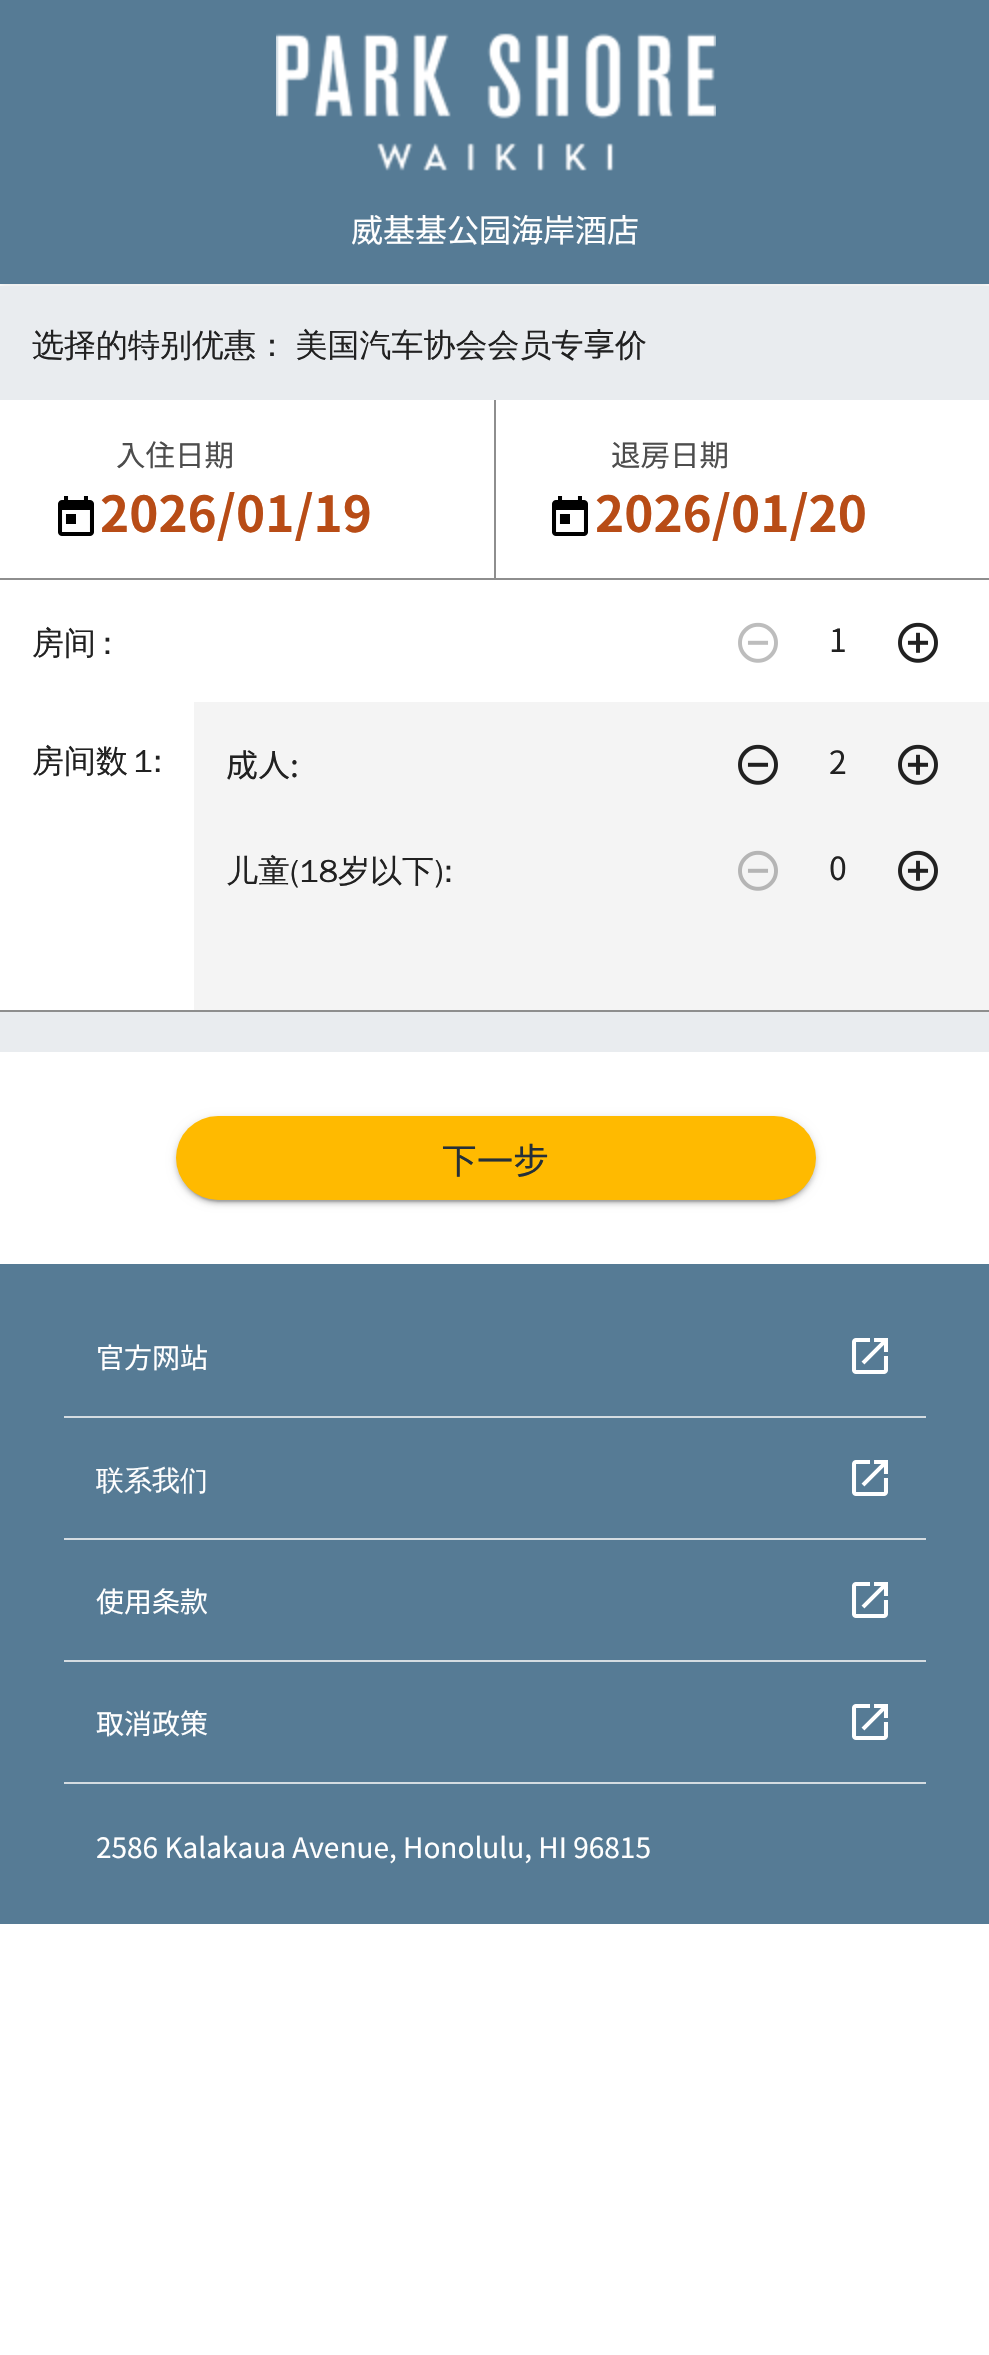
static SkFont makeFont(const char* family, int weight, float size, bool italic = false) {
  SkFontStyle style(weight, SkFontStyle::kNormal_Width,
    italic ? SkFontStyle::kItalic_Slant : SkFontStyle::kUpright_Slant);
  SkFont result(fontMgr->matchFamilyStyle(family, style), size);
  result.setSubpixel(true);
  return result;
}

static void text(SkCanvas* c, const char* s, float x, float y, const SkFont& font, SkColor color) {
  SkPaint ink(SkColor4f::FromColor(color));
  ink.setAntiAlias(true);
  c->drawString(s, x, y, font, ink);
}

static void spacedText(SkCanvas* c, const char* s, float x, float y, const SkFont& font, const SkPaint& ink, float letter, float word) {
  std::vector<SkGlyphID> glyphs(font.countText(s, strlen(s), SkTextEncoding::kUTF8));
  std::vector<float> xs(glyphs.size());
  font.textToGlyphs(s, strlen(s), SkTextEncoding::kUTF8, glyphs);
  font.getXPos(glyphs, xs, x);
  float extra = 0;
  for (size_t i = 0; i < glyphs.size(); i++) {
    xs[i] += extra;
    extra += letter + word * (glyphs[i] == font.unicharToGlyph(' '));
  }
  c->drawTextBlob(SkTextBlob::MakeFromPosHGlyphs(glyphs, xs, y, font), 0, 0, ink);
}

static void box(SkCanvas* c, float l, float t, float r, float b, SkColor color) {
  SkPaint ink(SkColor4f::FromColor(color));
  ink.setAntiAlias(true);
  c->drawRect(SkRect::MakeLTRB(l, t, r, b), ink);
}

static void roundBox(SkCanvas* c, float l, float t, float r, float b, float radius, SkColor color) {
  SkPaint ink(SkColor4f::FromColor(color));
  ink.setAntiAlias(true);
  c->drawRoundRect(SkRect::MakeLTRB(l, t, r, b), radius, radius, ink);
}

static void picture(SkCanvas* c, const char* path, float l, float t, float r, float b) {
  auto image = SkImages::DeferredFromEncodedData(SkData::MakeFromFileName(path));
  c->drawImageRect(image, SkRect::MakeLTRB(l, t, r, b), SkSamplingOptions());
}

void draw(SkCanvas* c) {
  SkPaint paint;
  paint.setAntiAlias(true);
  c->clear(0xffffffff);
  paint.setColor(0x12000000);
  paint.setMaskFilter(SkMaskFilter::MakeBlur(kNormal_SkBlurStyle, 4));
  c->drawRect(SkRect::MakeLTRB(0, 4, 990, 288), paint);
  paint.setMaskFilter(nullptr);
  box(c, 0, 0, 989, 284, 0xff567b95);
  picture(c, "img_01.png", 276, 33, 716, 171);
  SkFont face1 = makeFont("Noto Sans JP", 400, 32);
  text(c, "威基基公园海岸酒店", 351, 242, face1, 0xffffffff);
  box(c, 0, 286, 989, 400, 0xffe9ecef);
  SkFont face2 = makeFont("WenQuanYi Zen Hei", 500, 32);
  paint.setColor(0xff212121);
  spacedText(c, "选择的特别优惠： 美国汽车协会会员专", 32, 356, face2, paint, 0, -2);
  text(c, "享", 583, 356, face1, 0xff212121);
  text(c, "价", 615, 356, face2, 0xff212121);
  box(c, 0, 578, 989, 580, 0xff8e8e8e);
  box(c, 494, 400, 496, 578, 0xff8e8e8e);
  SkFont face3 = makeFont("Noto Sans JP", 400, 29.5f);
  text(c, "入住日期", 116, 466, face3, 0xff4d4d4d);
  picture(c, "img_02.png", 58, 496, 94, 536);
  SkFont face4 = makeFont("Noto Sans JP", 700, 49.5f);
  text(c, "2026/01/19", 100, 532, face4, 0xffb84c16);
  text(c, "退房日期", 611, 466, face3, 0xff4d4d4d);
  picture(c, "img_02.png", 552, 496, 588, 536);
  text(c, "2026/01/20", 595, 532, face4, 0xffb84c16);
  spacedText(c, "房间 :", 32, 654, face2, paint, 0, -3);
  picture(c, "img_03.png", 738, 622, 778, 663);
  text(c, "1", 829, 652, face1, 0xff212121);
  picture(c, "img_04.png", 898, 622, 938, 663);
  box(c, 0, 1010, 989, 1012, 0xff8e8e8e);
  spacedText(c, "房间数 1:", 32, 772, face2, paint, 0, -4);
  box(c, 194, 702, 989, 1010, 0xfff4f4f4);
  text(c, "成人:", 226, 777, face1, 0xff212121);
  picture(c, "img_05.png", 738, 744, 778, 785);
  text(c, "2", 829, 774, face1, 0xff212121);
  picture(c, "img_06.png", 898, 744, 938, 785);
  text(c, "儿童(18岁以下):", 226, 882, face2, 0xff212121);
  picture(c, "img_07.png", 738, 850, 778, 891);
  text(c, "0", 829, 880, face1, 0xff212121);
  picture(c, "img_06.png", 898, 850, 938, 891);
  box(c, 0, 1012, 989, 1052, 0xffe9ecef);
  paint.setColor(0x1f000000);
  paint.setMaskFilter(SkMaskFilter::MakeBlur(kNormal_SkBlurStyle, 5));
  c->drawRoundRect(SkRect::MakeLTRB(176, 1118, 816, 1202), 42, 42, paint);
  paint.setMaskFilter(nullptr);
  paint.setColor(0x24000000);
  paint.setMaskFilter(SkMaskFilter::MakeBlur(kNormal_SkBlurStyle, 2));
  c->drawRoundRect(SkRect::MakeLTRB(176, 1120, 816, 1204), 42, 42, paint);
  paint.setMaskFilter(nullptr);
  paint.setColor(0x33000000);
  paint.setMaskFilter(SkMaskFilter::MakeBlur(kNormal_SkBlurStyle, 1));
  c->drawRoundRect(SkRect::MakeLTRB(180, 1126, 812, 1202), 38, 38, paint);
  paint.setMaskFilter(nullptr);
  roundBox(c, 176, 1116, 816, 1200, 42, 0xffffba00);
  SkFont face5 = makeFont("Noto Sans JP", 400, 36);
  text(c, "下一步", 441, 1174, face5, 0xff253039);
  box(c, 0, 1264, 989, 1924, 0xff567b95);
  box(c, 64, 1416, 926, 1418, 0xffd4dce1);
  SkFont face6 = makeFont("Noto Sans JP", 400, 28);
  text(c, "官方网站", 96, 1368, face6, 0xffffffff);
  picture(c, "img_08.png", 852, 1338, 888, 1374);
  box(c, 64, 1538, 926, 1540, 0xffd4dce1);
  SkFont face7 = makeFont("WenQuanYi Zen Hei", 500, 28);
  text(c, "联系我们", 96, 1490, face7, 0xffffffff);
  picture(c, "img_08.png", 852, 1460, 888, 1496);
  box(c, 64, 1660, 926, 1662, 0xffd4dce1);
  text(c, "使用条款", 96, 1612, face6, 0xffffffff);
  picture(c, "img_08.png", 852, 1582, 888, 1618);
  box(c, 64, 1782, 926, 1784, 0xffd4dce1);
  text(c, "取消政策", 96, 1734, face6, 0xffffffff);
  picture(c, "img_08.png", 852, 1704, 888, 1740);
  text(c, "2586 Kalakaua Avenue, Honolulu, HI 96815", 96, 1858, face6, 0xffffffff);
}
